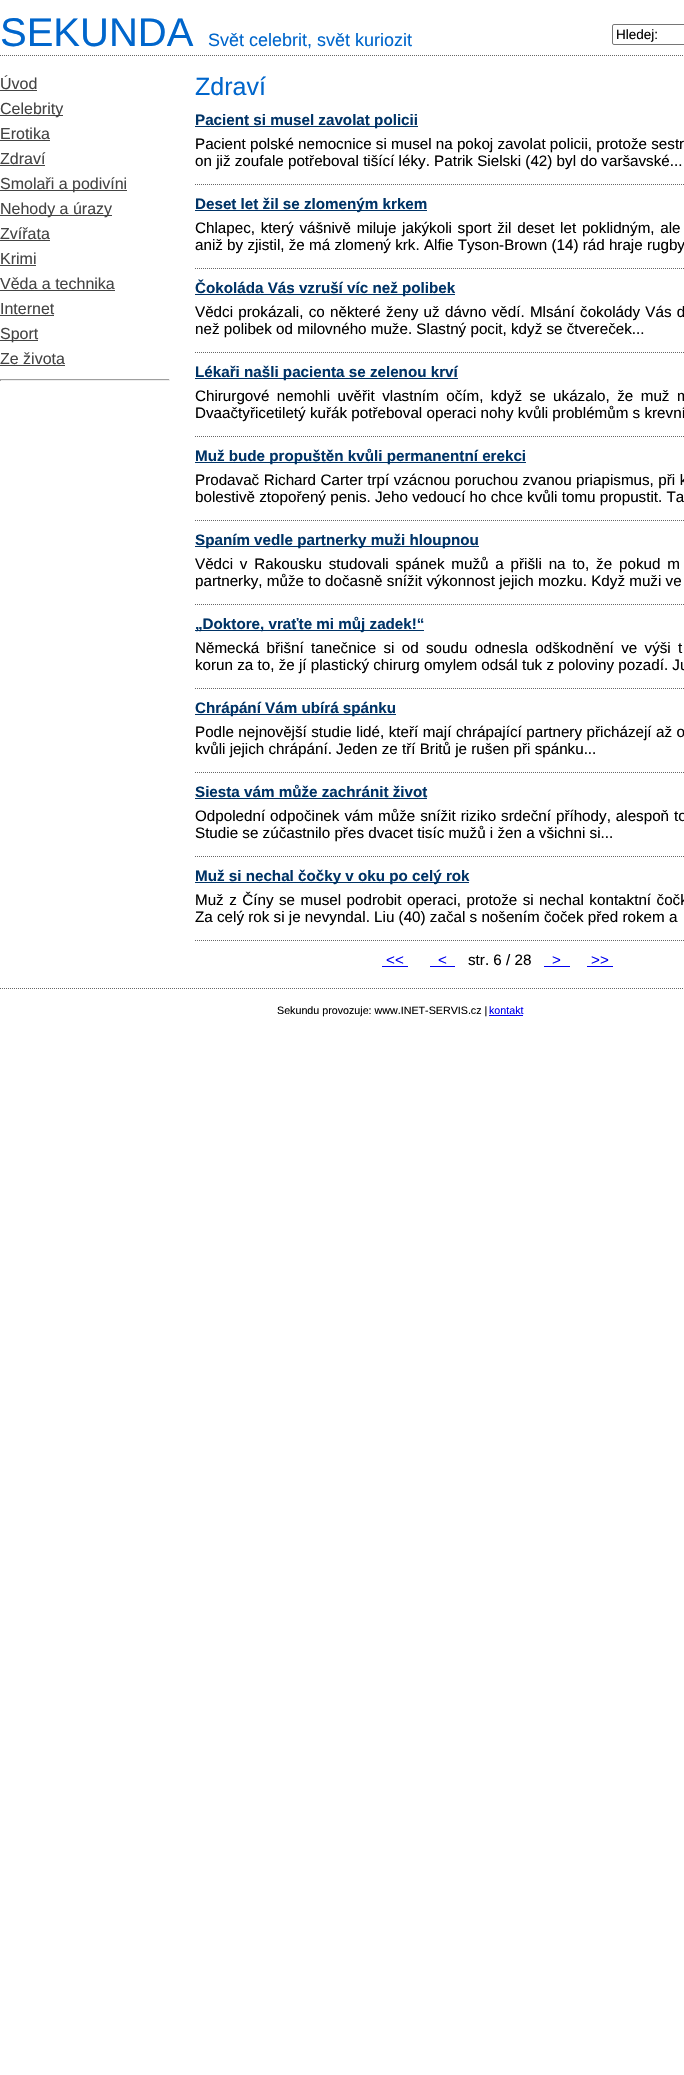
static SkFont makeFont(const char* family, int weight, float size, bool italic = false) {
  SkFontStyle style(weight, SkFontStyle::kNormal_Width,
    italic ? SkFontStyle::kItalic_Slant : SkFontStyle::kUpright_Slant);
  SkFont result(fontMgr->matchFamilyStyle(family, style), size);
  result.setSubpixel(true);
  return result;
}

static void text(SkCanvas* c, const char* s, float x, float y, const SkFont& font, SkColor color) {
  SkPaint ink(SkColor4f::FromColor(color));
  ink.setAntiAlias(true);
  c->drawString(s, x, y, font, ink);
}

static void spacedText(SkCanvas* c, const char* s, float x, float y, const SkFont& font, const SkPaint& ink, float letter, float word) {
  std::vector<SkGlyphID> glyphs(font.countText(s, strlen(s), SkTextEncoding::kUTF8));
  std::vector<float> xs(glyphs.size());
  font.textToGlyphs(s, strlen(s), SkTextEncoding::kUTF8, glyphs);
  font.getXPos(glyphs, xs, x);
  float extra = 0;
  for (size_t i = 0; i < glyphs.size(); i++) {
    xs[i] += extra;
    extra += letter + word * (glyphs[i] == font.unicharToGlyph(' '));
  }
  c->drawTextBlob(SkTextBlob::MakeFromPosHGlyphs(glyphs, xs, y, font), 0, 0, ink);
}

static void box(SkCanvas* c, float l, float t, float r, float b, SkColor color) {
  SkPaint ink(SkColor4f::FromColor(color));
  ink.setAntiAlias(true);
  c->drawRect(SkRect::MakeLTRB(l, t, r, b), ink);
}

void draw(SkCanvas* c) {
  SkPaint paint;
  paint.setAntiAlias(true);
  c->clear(0xffffffff);
  paint.setStyle(SkPaint::kStroke_Style);
  paint.setStrokeWidth(1);
  paint.setColor(0xff666666);
  paint.setPathEffect(SkDashPathEffect::Make({{1, 1}}, 0));
  c->drawPath(SkPathBuilder().moveTo(0, 55.5f).lineTo(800, 55.5f).detach(), paint);
  paint.setPathEffect(nullptr);
  SkFont face1 = makeFont("Liberation Sans", 400, 40);
  text(c, "SEKUNDA", 0, 46, face1, 0xff0066cc);
  SkFont face2 = makeFont("Liberation Sans", 400, 18);
  text(c, "Svět celebrit, svět kuriozit", 208, 46, face2, 0xff0066cc);
  paint.setColor(0xff767676);
  c->drawRoundRect(SkRect::MakeLTRB(612.5f, 24.5f, 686.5f, 44.5f), 1.5f, 1.5f, paint);
  SkFont face3 = makeFont("Liberation Sans", 400, 13.5f);
  text(c, "Hledej:", 616, 39, face3, 0xff000000);
  SkFont face4 = makeFont("Liberation Sans", 400, 16);
  text(c, "Úvod", 0, 89, face4, 0xff444444);
  box(c, 0, 90, 37, 91, 0xff444444);
  box(c, 0, 115, 63, 116, 0xff444444);
  text(c, "Celebrity", 0, 114, face4, 0xff444444);
  text(c, "Erotika", 0, 139, face4, 0xff444444);
  box(c, 0, 140, 50, 141, 0xff444444);
  text(c, "Zdraví", 0, 164, face4, 0xff444444);
  box(c, 0, 165, 45, 166, 0xff444444);
  box(c, 0, 190, 127, 191, 0xff444444);
  text(c, "Smolaři a podivíni", 0, 189, face4, 0xff444444);
  box(c, 0, 215, 112, 216, 0xff444444);
  text(c, "Nehody a úrazy", 0, 214, face4, 0xff444444);
  text(c, "Zvířata", 0, 239, face4, 0xff444444);
  box(c, 0, 240, 50, 241, 0xff444444);
  text(c, "Krimi", 0, 264, face4, 0xff444444);
  box(c, 0, 265, 36, 266, 0xff444444);
  text(c, "Věda a technika", 0, 289, face4, 0xff444444);
  box(c, 0, 290, 115, 291, 0xff444444);
  text(c, "Internet", 0, 314, face4, 0xff444444);
  box(c, 0, 315, 54, 316, 0xff444444);
  box(c, 0, 340, 38, 341, 0xff444444);
  text(c, "Sport", 0, 339, face4, 0xff444444);
  text(c, "Ze života", 0, 364, face4, 0xff444444);
  box(c, 0, 365, 65, 366, 0xff444444);
  box(c, 0, 379, 170, 380, 0xff9f9f9f);
  box(c, 169, 379, 170, 381, 0xffeeeeee);
  box(c, 0, 380, 170, 381, 0xffeeeeee);
  box(c, 0, 379, 1, 381, 0xff9f9f9f);
  SkFont face5 = makeFont("Liberation Sans", 400, 25);
  text(c, "Zdraví", 195, 95, face5, 0xff0066cc);
  box(c, 195, 126, 418, 127, 0xff003366);
  SkFont face6 = makeFont("Liberation Sans", 700, 15.2f);
  text(c, "Pacient si musel zavolat policii", 195, 125, face6, 0xff003366);
  paint.setColor(0xff666666);
  paint.setPathEffect(SkDashPathEffect::Make({{1, 1}}, 0));
  c->drawPath(SkPathBuilder().moveTo(195, 184.5f).lineTo(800, 184.5f).detach(), paint);
  paint.setPathEffect(nullptr);
  SkFont face7 = makeFont("Liberation Sans", 400, 15.2f);
  text(c, "Pacient polské nemocnice si musel na pokoj zavolat policii, protože sestr", 195, 149, face7, 0xff000000);
  text(c, "on již zoufale potřeboval tišící léky. Patrik Sielski (42) byl do varšavské...", 195, 166, face7, 0xff000000);
  box(c, 195, 210, 427, 211, 0xff003366);
  text(c, "Deset let žil se zlomeným krkem", 195, 209, face6, 0xff003366);
  paint.setPathEffect(SkDashPathEffect::Make({{1, 1}}, 0));
  c->drawPath(SkPathBuilder().moveTo(195, 268.5f).lineTo(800, 268.5f).detach(), paint);
  paint.setPathEffect(nullptr);
  paint.setStyle(SkPaint::kFill_Style);
  paint.setColor(0xff000000);
  spacedText(c, "Chlapec, který vášnivě miluje jakýkoli sport žil deset let poklidným, ale", 195, 233, face7, paint, 0, 1.5f);
  text(c, "aniž by zjistil, že má zlomený krk. Alfie Tyson-Brown (14) rád hraje rugby", 195, 250, face7, 0xff000000);
  box(c, 195, 294, 455, 295, 0xff003366);
  text(c, "Čokoláda Vás vzruší víc než polibek", 195, 293, face6, 0xff003366);
  paint.setStyle(SkPaint::kStroke_Style);
  paint.setColor(0xff666666);
  paint.setPathEffect(SkDashPathEffect::Make({{1, 1}}, 0));
  c->drawPath(SkPathBuilder().moveTo(195, 352.5f).lineTo(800, 352.5f).detach(), paint);
  paint.setPathEffect(nullptr);
  paint.setStyle(SkPaint::kFill_Style);
  paint.setColor(0xff000000);
  spacedText(c, "Vědci prokázali, co některé ženy už dávno vědí. Mlsání čokolády Vás d", 195, 317, face7, paint, 0, 1.1f);
  text(c, "než polibek od milovného muže. Slastný pocit, když se čtvereček...", 195, 334, face7, 0xff000000);
  box(c, 195, 378, 458, 379, 0xff003366);
  text(c, "Lékaři našli pacienta se zelenou krví", 195, 377, face6, 0xff003366);
  paint.setStyle(SkPaint::kStroke_Style);
  paint.setColor(0xff666666);
  paint.setPathEffect(SkDashPathEffect::Make({{1, 1}}, 0));
  c->drawPath(SkPathBuilder().moveTo(195, 436.5f).lineTo(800, 436.5f).detach(), paint);
  paint.setPathEffect(nullptr);
  paint.setStyle(SkPaint::kFill_Style);
  paint.setColor(0xff000000);
  spacedText(c, "Chirurgové nemohli uvěřit vlastním očím, když se ukázalo, že muž m", 195, 401, face7, paint, 0, 3.25f);
  text(c, "Dvaačtyřicetiletý kuřák potřeboval operaci nohy kvůli problémům s krevní", 195, 418, face7, 0xff000000);
  box(c, 195, 462, 526, 463, 0xff003366);
  text(c, "Muž bude propuštěn kvůli permanentní erekci", 195, 461, face6, 0xff003366);
  paint.setStyle(SkPaint::kStroke_Style);
  paint.setColor(0xff666666);
  paint.setPathEffect(SkDashPathEffect::Make({{1, 1}}, 0));
  c->drawPath(SkPathBuilder().moveTo(195, 520.5f).lineTo(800, 520.5f).detach(), paint);
  paint.setPathEffect(nullptr);
  paint.setStyle(SkPaint::kFill_Style);
  paint.setColor(0xff000000);
  spacedText(c, "Prodavač Richard Carter trpí vzácnou poruchou zvanou priapismus, při k", 195, 485, face7, paint, 0, 0.25f);
  text(c, "bolestivě ztopořený penis. Jeho vedoucí ho chce kvůli tomu propustit. Ta", 195, 502, face7, 0xff000000);
  box(c, 195, 546, 479, 547, 0xff003366);
  text(c, "Spaním vedle partnerky muži hloupnou", 195, 545, face6, 0xff003366);
  paint.setStyle(SkPaint::kStroke_Style);
  paint.setColor(0xff666666);
  paint.setPathEffect(SkDashPathEffect::Make({{1, 1}}, 0));
  c->drawPath(SkPathBuilder().moveTo(195, 604.5f).lineTo(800, 604.5f).detach(), paint);
  paint.setPathEffect(nullptr);
  paint.setStyle(SkPaint::kFill_Style);
  paint.setColor(0xff000000);
  spacedText(c, "Vědci v Rakousku studovali spánek mužů a přišli na to, že pokud m", 195, 569, face7, paint, 0, 2.6f);
  text(c, "partnerky, může to dočasně snížit výkonnost jejich mozku. Když muži ve", 195, 586, face7, 0xff000000);
  box(c, 195, 630, 424, 631, 0xff003366);
  text(c, "„Doktore, vraťte mi můj zadek!“", 195, 629, face6, 0xff003366);
  paint.setStyle(SkPaint::kStroke_Style);
  paint.setColor(0xff666666);
  paint.setPathEffect(SkDashPathEffect::Make({{1, 1}}, 0));
  c->drawPath(SkPathBuilder().moveTo(195, 688.5f).lineTo(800, 688.5f).detach(), paint);
  paint.setPathEffect(nullptr);
  paint.setStyle(SkPaint::kFill_Style);
  paint.setColor(0xff000000);
  spacedText(c, "Německá břišní tanečnice si od soudu odnesla odškodnění ve výši t", 195, 653, face7, paint, 0, 3.1f);
  text(c, "korun za to, že jí plastický chirurg omylem odsál tuk z poloviny pozadí. Ju", 195, 670, face7, 0xff000000);
  box(c, 195, 714, 396, 715, 0xff003366);
  text(c, "Chrápání Vám ubírá spánku", 195, 713, face6, 0xff003366);
  paint.setStyle(SkPaint::kStroke_Style);
  paint.setColor(0xff666666);
  paint.setPathEffect(SkDashPathEffect::Make({{1, 1}}, 0));
  c->drawPath(SkPathBuilder().moveTo(195, 772.5f).lineTo(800, 772.5f).detach(), paint);
  paint.setPathEffect(nullptr);
  paint.setStyle(SkPaint::kFill_Style);
  paint.setColor(0xff000000);
  spacedText(c, "Podle nejnovější studie lidé, kteří mají chrápající partnery přicházejí až o", 195, 737, face7, paint, 0, 0.25f);
  text(c, "kvůli jejich chrápání. Jeden ze tří Britů je rušen při spánku...", 195, 754, face7, 0xff000000);
  text(c, "Siesta vám může zachránit život", 195, 797, face6, 0xff003366);
  box(c, 195, 798, 427, 799, 0xff003366);
  paint.setStyle(SkPaint::kStroke_Style);
  paint.setColor(0xff666666);
  paint.setPathEffect(SkDashPathEffect::Make({{1, 1}}, 0));
  c->drawPath(SkPathBuilder().moveTo(195, 856.5f).lineTo(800, 856.5f).detach(), paint);
  paint.setPathEffect(nullptr);
  paint.setStyle(SkPaint::kFill_Style);
  paint.setColor(0xff000000);
  spacedText(c, "Odpolední odpočinek vám může snížit riziko srdeční příhody, alespoň to", 195, 821, face7, paint, 0, 0.75f);
  text(c, "Studie se zúčastnilo přes dvacet tisíc mužů i žen a všichni si...", 195, 838, face7, 0xff000000);
  box(c, 195, 882, 469, 883, 0xff003366);
  text(c, "Muž si nechal čočky v oku po celý rok", 195, 881, face6, 0xff003366);
  paint.setStyle(SkPaint::kStroke_Style);
  paint.setColor(0xff666666);
  paint.setPathEffect(SkDashPathEffect::Make({{1, 1}}, 0));
  c->drawPath(SkPathBuilder().moveTo(195, 940.5f).lineTo(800, 940.5f).detach(), paint);
  paint.setPathEffect(nullptr);
  paint.setStyle(SkPaint::kFill_Style);
  paint.setColor(0xff000000);
  spacedText(c, "Muž z Číny se musel podrobit operaci, protože si nechal kontaktní čočk", 195, 905, face7, paint, 0, 1.25f);
  text(c, "Za celý rok si je nevyndal. Liu (40) začal s nošením čoček před rokem a", 195, 922, face7, 0xff000000);
  text(c, "<<", 386, 965, face7, 0xff0000ee);
  box(c, 382, 966, 408, 967, 0xff0000ee);
  text(c, "<", 438, 965, face7, 0xff0000ee);
  box(c, 430, 966, 455, 967, 0xff0000ee);
  text(c, "str. 6 / 28", 468, 965, face7, 0xff000000);
  text(c, ">", 552, 965, face7, 0xff0000ee);
  box(c, 544, 966, 570, 967, 0xff0000ee);
  text(c, ">>", 591, 965, face7, 0xff0000ee);
  box(c, 587, 966, 613, 967, 0xff0000ee);
  paint.setStyle(SkPaint::kStroke_Style);
  paint.setColor(0xff666666);
  paint.setPathEffect(SkDashPathEffect::Make({{1, 1}}, 0));
  c->drawPath(SkPathBuilder().moveTo(0, 988.5f).lineTo(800, 988.5f).detach(), paint);
  paint.setPathEffect(nullptr);
  SkFont face8 = makeFont("Liberation Sans", 400, 10.7f);
  text(c, "Sekundu provozuje: www.INET-SERVIS.cz |", 277, 1014, face8, 0xff000000);
  text(c, "kontakt", 489, 1014, face8, 0xff0000ee);
  box(c, 489, 1015, 523, 1016, 0xff0000ee);
}
